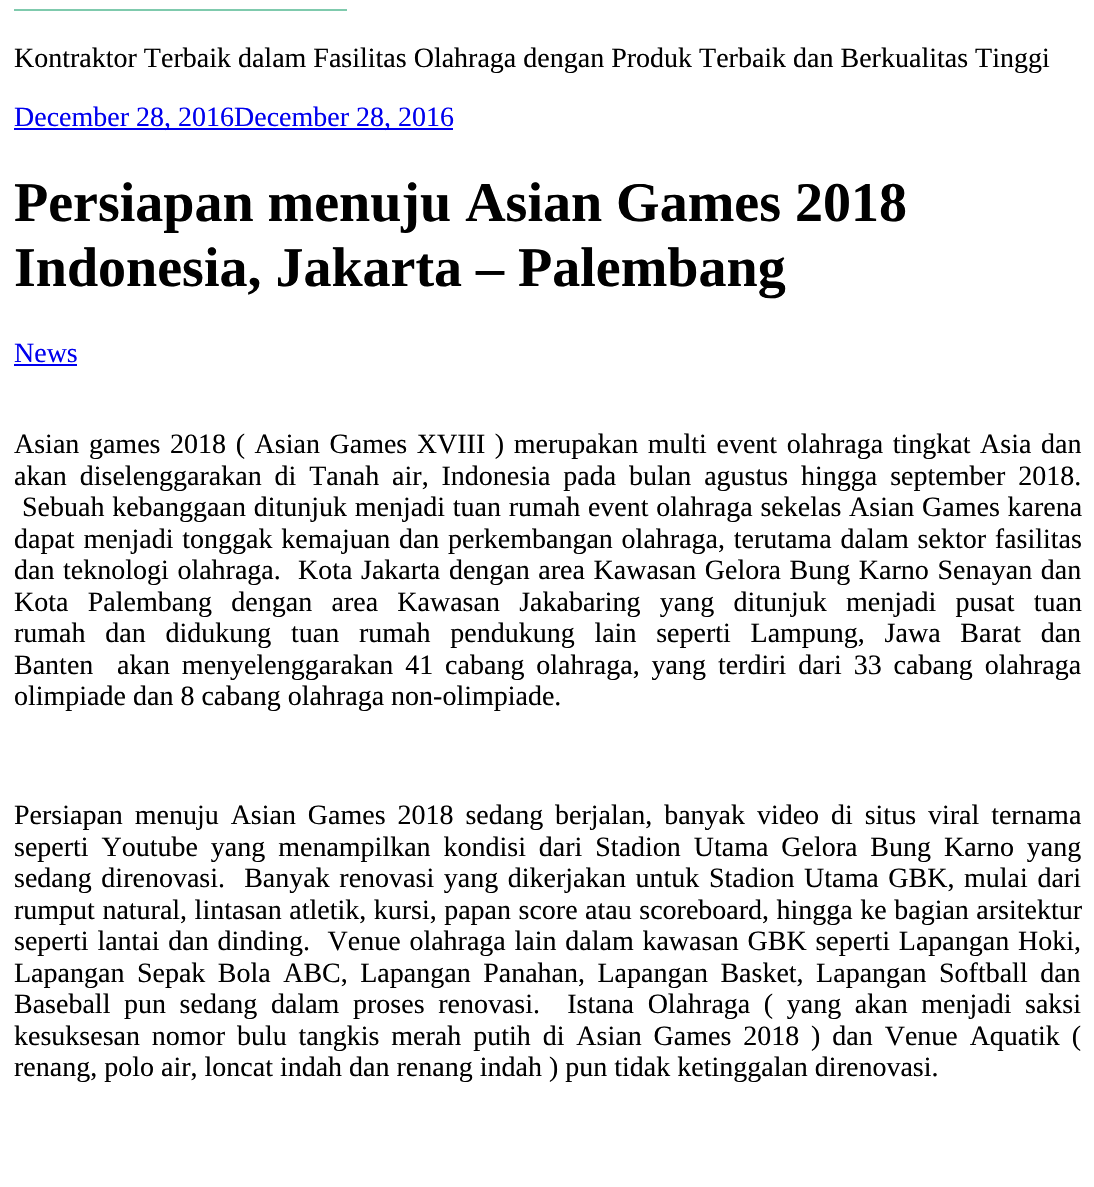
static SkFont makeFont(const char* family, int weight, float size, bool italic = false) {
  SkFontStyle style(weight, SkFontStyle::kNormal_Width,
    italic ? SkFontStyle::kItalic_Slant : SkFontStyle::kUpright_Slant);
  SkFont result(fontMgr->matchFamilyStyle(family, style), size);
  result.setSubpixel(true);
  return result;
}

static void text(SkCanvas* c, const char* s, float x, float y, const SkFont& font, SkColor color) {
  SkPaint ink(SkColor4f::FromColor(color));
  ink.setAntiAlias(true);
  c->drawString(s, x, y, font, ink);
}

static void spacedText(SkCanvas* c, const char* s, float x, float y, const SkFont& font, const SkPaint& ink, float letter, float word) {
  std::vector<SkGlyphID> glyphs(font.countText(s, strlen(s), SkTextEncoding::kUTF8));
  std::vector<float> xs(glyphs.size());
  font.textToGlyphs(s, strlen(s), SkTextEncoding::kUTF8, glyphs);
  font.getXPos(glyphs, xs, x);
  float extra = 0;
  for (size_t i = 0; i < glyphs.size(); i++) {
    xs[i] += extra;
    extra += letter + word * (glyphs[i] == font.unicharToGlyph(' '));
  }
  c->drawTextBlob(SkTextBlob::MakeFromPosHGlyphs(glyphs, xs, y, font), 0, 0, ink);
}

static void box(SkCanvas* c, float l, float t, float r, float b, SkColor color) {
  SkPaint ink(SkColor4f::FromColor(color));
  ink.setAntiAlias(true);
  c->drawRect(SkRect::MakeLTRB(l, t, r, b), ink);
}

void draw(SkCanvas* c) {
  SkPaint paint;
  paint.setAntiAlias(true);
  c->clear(0xffffffff);
  box(c, 14, 9, 347, 11, 0xff7fcaad);
  SkFont face1 = makeFont("Liberation Serif", 400, 28);
  text(c, "Kontraktor Terbaik dalam Fasilitas Olahraga dengan Produk Terbaik dan Berkualitas Tinggi", 14, 67, face1, 0xff000000);
  box(c, 14, 128, 453, 130, 0xff0000ee);
  text(c, "December 28, 2016December 28, 2016", 14, 126, face1, 0xff0000ee);
  SkFont face2 = makeFont("Liberation Serif", 700, 56);
  text(c, "Persiapan menuju Asian Games 2018", 14, 221, face2, 0xff000000);
  text(c, "Indonesia, Jakarta – Palembang", 14, 286, face2, 0xff000000);
  text(c, "News", 14, 362, face1, 0xff0000ee);
  box(c, 14, 364, 77, 366, 0xff0000ee);
  paint.setColor(0xff000000);
  spacedText(c, "Asian games 2018 ( Asian Games XVIII ) merupakan multi event olahraga tingkat Asia dan", 14, 453, face1, paint, 0, 2.6f);
  spacedText(c, "akan diselenggarakan di Tanah air, Indonesia pada bulan agustus hingga september 2018.", 14, 485, face1, paint, 0, 5.9f);
  spacedText(c, "Sebuah kebanggaan ditunjuk menjadi tuan rumah event olahraga sekelas Asian Games karena", 22, 516, face1, paint, 0, 0.75f);
  spacedText(c, "dapat menjadi tonggak kemajuan dan perkembangan olahraga, terutama dalam sektor fasilitas", 14, 548, face1, paint, 0, 1.75f);
  spacedText(c, "dan teknologi olahraga.  Kota Jakarta dengan area Kawasan Gelora Bung Karno Senayan dan", 14, 579, face1, paint, 0, 1.6f);
  spacedText(c, "Kota Palembang dengan area Kawasan Jakabaring yang ditunjuk menjadi pusat tuan", 14, 611, face1, paint, 0, 12.25f);
  spacedText(c, "rumah dan didukung tuan rumah pendukung lain seperti Lampung, Jawa Barat dan", 14, 642, face1, paint, 0, 12.75f);
  spacedText(c, "Banten  akan menyelenggarakan 41 cabang olahraga, yang terdiri dari 33 cabang olahraga", 14, 674, face1, paint, 0, 4.9f);
  text(c, "olimpiade dan 8 cabang olahraga non-olimpiade.", 14, 705, face1, 0xff000000);
  spacedText(c, "Persiapan menuju Asian Games 2018 sedang berjalan, banyak video di situs viral ternama", 14, 824, face1, paint, 0, 4.9f);
  spacedText(c, "seperti Youtube yang menampilkan kondisi dari Stadion Utama Gelora Bung Karno yang", 14, 856, face1, paint, 0, 5.9f);
  spacedText(c, "sedang direnovasi.  Banyak renovasi yang dikerjakan untuk Stadion Utama GBK, mulai dari", 14, 887, face1, paint, 0, 2.6f);
  spacedText(c, "rumput natural, lintasan atletik, kursi, papan score atau scoreboard, hingga ke bagian arsitektur", 14, 919, face1, paint, 0, 0.5f);
  spacedText(c, "seperti lantai dan dinding.  Venue olahraga lain dalam kawasan GBK seperti Lapangan Hoki,", 14, 950, face1, paint, 0, 1.75f);
  spacedText(c, "Lapangan Sepak Bola ABC, Lapangan Panahan, Lapangan Basket, Lapangan Softball dan", 14, 982, face1, paint, 0, 5.5f);
  spacedText(c, "Baseball pun sedang dalam proses renovasi.  Istana Olahraga ( yang akan menjadi saksi", 14, 1013, face1, paint, 0, 6.6f);
  spacedText(c, "kesuksesan nomor bulu tangkis merah putih di Asian Games 2018 ) dan Venue Aquatik (", 14, 1045, face1, paint, 0, 4.9f);
  text(c, "renang, polo air, loncat indah dan renang indah ) pun tidak ketinggalan direnovasi.", 14, 1076, face1, 0xff000000);
}
